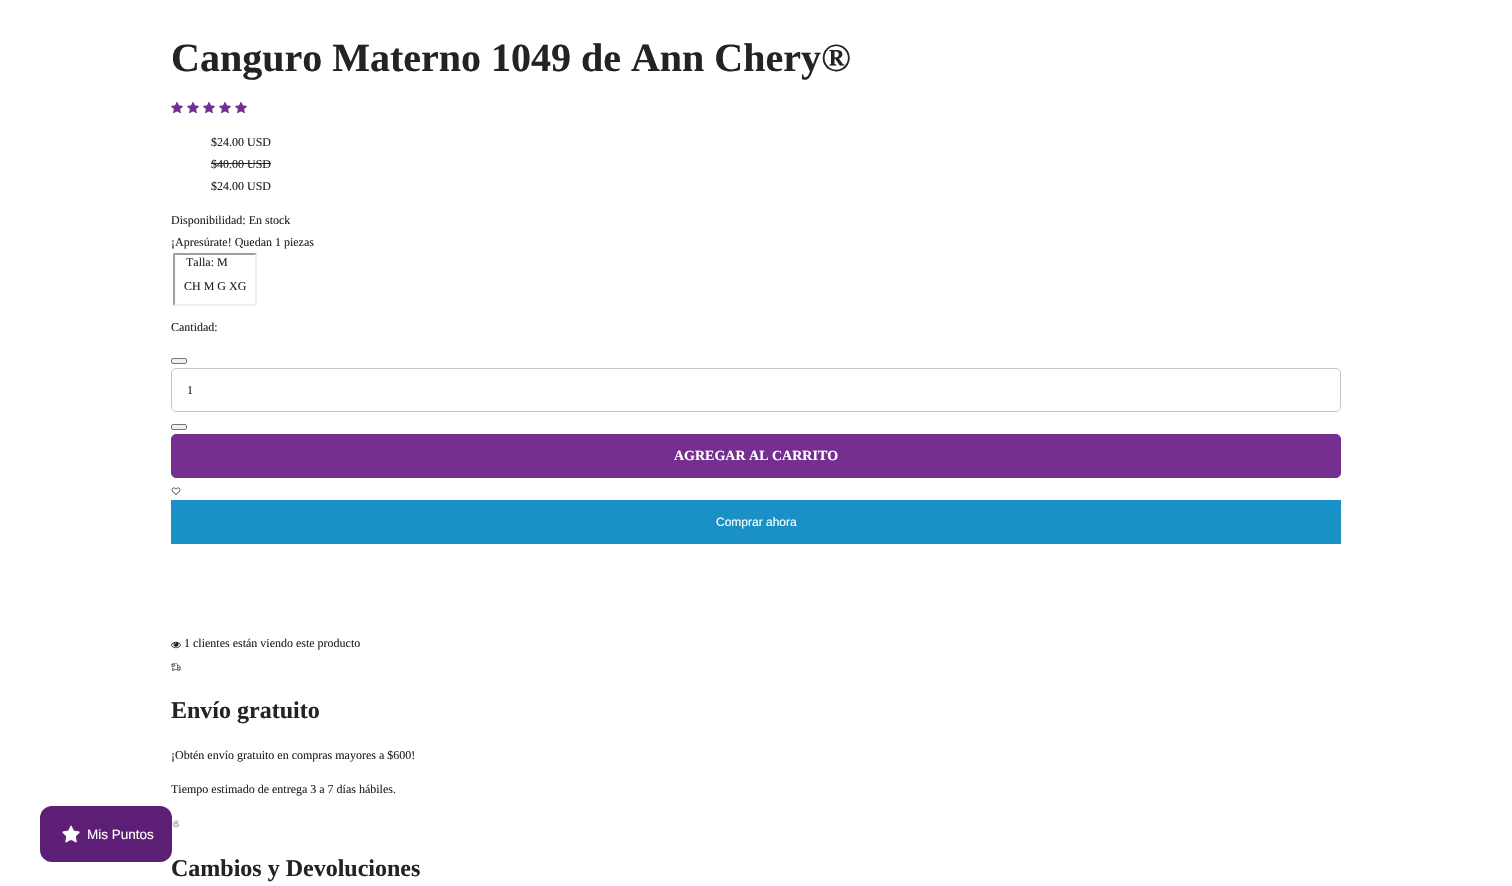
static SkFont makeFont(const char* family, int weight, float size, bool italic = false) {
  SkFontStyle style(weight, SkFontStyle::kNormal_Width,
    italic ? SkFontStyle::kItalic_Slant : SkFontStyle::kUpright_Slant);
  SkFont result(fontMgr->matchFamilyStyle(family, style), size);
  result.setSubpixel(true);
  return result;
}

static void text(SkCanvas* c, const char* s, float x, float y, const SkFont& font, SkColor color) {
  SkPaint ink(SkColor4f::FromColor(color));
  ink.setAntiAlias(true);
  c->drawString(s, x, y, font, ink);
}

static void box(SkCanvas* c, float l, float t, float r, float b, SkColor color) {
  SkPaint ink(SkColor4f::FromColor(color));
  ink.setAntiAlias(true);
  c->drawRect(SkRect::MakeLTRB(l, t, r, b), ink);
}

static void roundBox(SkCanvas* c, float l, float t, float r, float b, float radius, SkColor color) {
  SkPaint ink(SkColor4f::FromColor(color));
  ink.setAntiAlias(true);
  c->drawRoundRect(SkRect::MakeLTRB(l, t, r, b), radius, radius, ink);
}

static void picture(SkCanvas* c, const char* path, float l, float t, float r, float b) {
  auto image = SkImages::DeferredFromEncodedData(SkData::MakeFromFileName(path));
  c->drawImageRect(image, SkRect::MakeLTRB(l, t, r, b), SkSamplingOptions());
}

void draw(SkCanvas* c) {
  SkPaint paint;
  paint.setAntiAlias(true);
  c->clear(0xffffffff);
  roundBox(c, 40, 806, 172, 862, 12, 0xff5d1f75);
  picture(c, "img_01.png", 62, 825, 80, 843);
  SkFont face1 = makeFont("Liberation Sans", 400, 13.5f);
  text(c, "Mis Puntos", 87, 839, face1, 0xffffffff);
  SkFont face2 = makeFont("Liberation Serif", 700, 40);
  text(c, "Canguro Materno 1049 de Ann Chery®", 171, 71, face2, 0xff232323);
  picture(c, "img_02.png", 171, 101, 183, 114);
  picture(c, "img_02.png", 187, 101, 199, 114);
  picture(c, "img_02.png", 203, 101, 215, 114);
  picture(c, "img_02.png", 219, 101, 231, 114);
  picture(c, "img_02.png", 235, 101, 247, 114);
  SkFont face3 = makeFont("Liberation Serif", 400, 12);
  text(c, "$24.00 USD", 211, 146, face3, 0xff232323);
  text(c, "$40.00 USD", 211, 168, face3, 0xff232323);
  box(c, 211, 163, 271, 164, 0xff232323);
  text(c, "$24.00 USD", 211, 190, face3, 0xff232323);
  text(c, "Disponibilidad: En stock", 171, 224, face3, 0xff232323);
  text(c, "¡Apresúrate! Quedan 1 piezas", 171, 246, face3, 0xff232323);
  paint.setColor(0xff9f9f9f);
  c->drawPath(SkPathBuilder().moveTo(173, 253).lineTo(257, 253).lineTo(255, 255).lineTo(175, 255).close().detach(), paint);
  paint.setColor(0xffefefef);
  c->drawPath(SkPathBuilder().moveTo(257, 253).lineTo(257, 306).lineTo(255, 304).lineTo(255, 255).close().detach(), paint);
  c->drawPath(SkPathBuilder().moveTo(257, 306).lineTo(173, 306).lineTo(175, 304).lineTo(255, 304).close().detach(), paint);
  paint.setColor(0xff9f9f9f);
  c->drawPath(SkPathBuilder().moveTo(173, 306).lineTo(173, 253).lineTo(175, 255).lineTo(175, 304).close().detach(), paint);
  text(c, "Talla: M", 186, 266, face3, 0xff232323);
  text(c, "CH M G XG", 184, 290, face3, 0xff232323);
  text(c, "Cantidad:", 171, 331, face3, 0xff232323);
  paint.setColor(0xffefefef);
  c->drawRoundRect(SkRect::MakeLTRB(171.5f, 358.5f, 186.5f, 363.5f), 1.5f, 1.5f, paint);
  paint.setStyle(SkPaint::kStroke_Style);
  paint.setStrokeWidth(1);
  paint.setColor(0xff767676);
  c->drawRoundRect(SkRect::MakeLTRB(171.5f, 358.5f, 186.5f, 363.5f), 1.5f, 1.5f, paint);
  paint.setColor(0xffc7c7c7);
  c->drawRoundRect(SkRect::MakeLTRB(171.5f, 368.5f, 1340.5f, 411.5f), 4.5f, 4.5f, paint);
  text(c, "1", 187, 394, face3, 0xff232323);
  paint.setStyle(SkPaint::kFill_Style);
  paint.setColor(0xffefefef);
  c->drawRoundRect(SkRect::MakeLTRB(171.5f, 424.5f, 186.5f, 429.5f), 1.5f, 1.5f, paint);
  paint.setStyle(SkPaint::kStroke_Style);
  paint.setColor(0xff767676);
  c->drawRoundRect(SkRect::MakeLTRB(171.5f, 424.5f, 186.5f, 429.5f), 1.5f, 1.5f, paint);
  paint.setStyle(SkPaint::kFill_Style);
  paint.setColor(0xff742f90);
  c->drawRoundRect(SkRect::MakeLTRB(171.5f, 434.5f, 1340.5f, 477.5f), 4.5f, 4.5f, paint);
  paint.setStyle(SkPaint::kStroke_Style);
  c->drawRoundRect(SkRect::MakeLTRB(171.5f, 434.5f, 1340.5f, 477.5f), 4.5f, 4.5f, paint);
  SkFont face4 = makeFont("Liberation Serif", 700, 14);
  text(c, "AGREGAR AL CARRITO", 674, 460, face4, 0xffffffff);
  picture(c, "img_03.png", 171, 487, 181, 495);
  box(c, 171, 500, 1341, 544, 0xff1990c6);
  SkFont face5 = makeFont("Liberation Sans", 400, 12);
  text(c, "Comprar ahora", 716, 526, face5, 0xffffffff);
  picture(c, "img_04.png", 171, 641, 181, 649);
  text(c, "1 clientes están viendo este producto", 184, 647, face3, 0xff232323);
  picture(c, "img_05.png", 171, 663, 181, 671);
  SkFont face6 = makeFont("Liberation Serif", 700, 24);
  text(c, "Envío gratuito", 171, 718, face6, 0xff232323);
  text(c, "¡Obtén envío gratuito en compras mayores a $600!", 171, 759, face3, 0xff232323);
  text(c, "Tiempo estimado de entrega 3 a 7 días hábiles.", 171, 793, face3, 0xff232323);
  picture(c, "img_06.png", 172, 820, 180, 828);
  text(c, "Cambios y Devoluciones", 171, 876, face6, 0xff232323);
}
